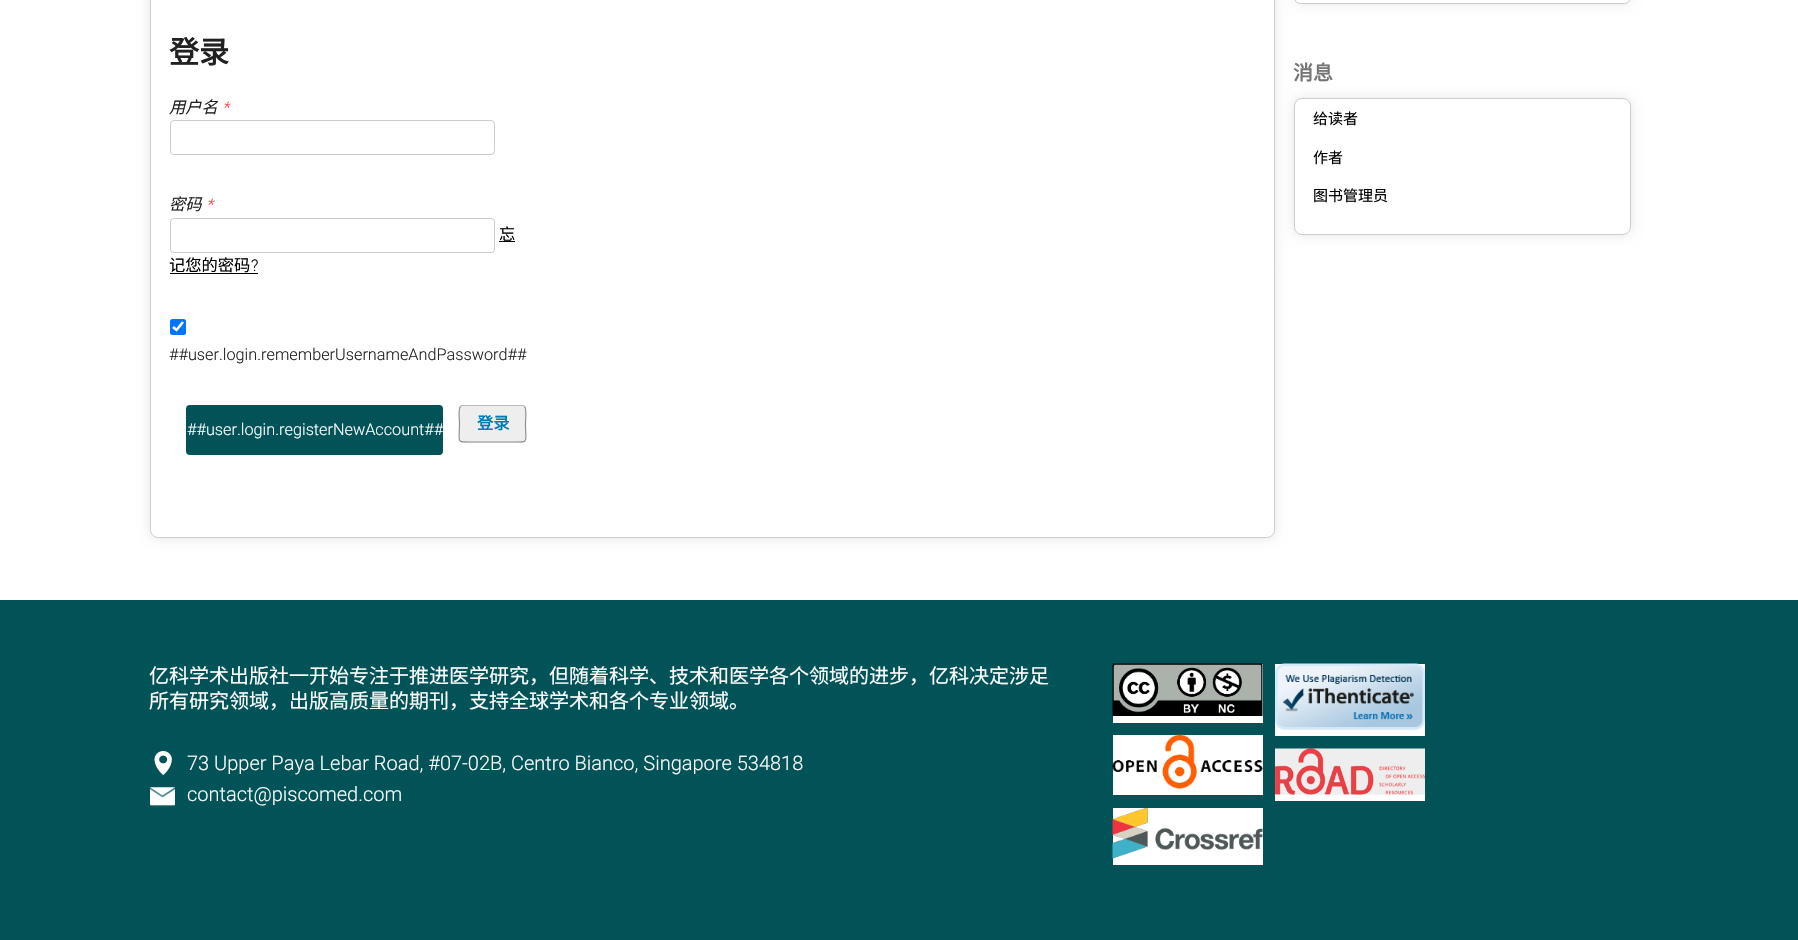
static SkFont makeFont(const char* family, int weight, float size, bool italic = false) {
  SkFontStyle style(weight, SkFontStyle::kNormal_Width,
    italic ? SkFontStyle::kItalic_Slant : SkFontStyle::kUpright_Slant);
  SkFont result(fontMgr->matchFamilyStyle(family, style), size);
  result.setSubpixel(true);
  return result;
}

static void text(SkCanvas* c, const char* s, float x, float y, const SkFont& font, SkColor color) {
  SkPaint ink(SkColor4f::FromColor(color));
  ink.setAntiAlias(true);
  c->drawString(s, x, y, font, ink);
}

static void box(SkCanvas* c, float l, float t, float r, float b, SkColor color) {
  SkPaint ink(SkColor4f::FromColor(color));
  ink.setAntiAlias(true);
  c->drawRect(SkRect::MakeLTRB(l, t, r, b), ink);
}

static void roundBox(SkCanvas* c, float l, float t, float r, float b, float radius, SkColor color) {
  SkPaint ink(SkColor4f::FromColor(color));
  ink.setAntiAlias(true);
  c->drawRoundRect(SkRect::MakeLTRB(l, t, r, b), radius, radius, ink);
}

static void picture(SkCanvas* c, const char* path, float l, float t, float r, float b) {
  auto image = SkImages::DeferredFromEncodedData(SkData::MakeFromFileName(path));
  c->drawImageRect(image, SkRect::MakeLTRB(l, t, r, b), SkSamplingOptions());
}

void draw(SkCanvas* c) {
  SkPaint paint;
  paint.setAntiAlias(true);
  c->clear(0xffffffff);
  c->save();
  c->clipPath(SkPathBuilder(SkPathFillType::kEvenOdd).moveTo(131, 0).lineTo(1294, 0).lineTo(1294, 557).lineTo(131, 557).close().moveTo(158, -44).lineTo(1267, -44).cubicTo(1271.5f, -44, 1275, -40.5f, 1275, -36).lineTo(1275, 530).cubicTo(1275, 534.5f, 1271.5f, 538, 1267, 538).lineTo(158, 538).cubicTo(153.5f, 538, 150, 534.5f, 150, 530).lineTo(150, -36).cubicTo(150, -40.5f, 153.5f, -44, 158, -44).close().detach(), true);
  paint.setColor(0x1a000000);
  paint.setMaskFilter(SkMaskFilter::MakeBlur(kNormal_SkBlurStyle, 6));
  c->drawRoundRect(SkRect::MakeLTRB(150, -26, 1275, 538), 8, 8, paint);
  paint.setMaskFilter(nullptr);
  c->restore();
  paint.setStyle(SkPaint::kStroke_Style);
  paint.setStrokeWidth(1);
  paint.setColor(0xffcccccc);
  c->drawRoundRect(SkRect::MakeLTRB(150.5f, -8.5f, 1274.5f, 537.5f), 7.5f, 7.5f, paint);
  SkFont face1 = makeFont("Noto Sans CJK SC", 700, 30);
  text(c, "登录", 169, 63, face1, 0xff212121);
  SkFont face2 = makeFont("Noto Sans CJK SC", 400, 16.25f, true);
  text(c, "用户名", 169, 113, face2, 0xff212121);
  SkFont face3 = makeFont("Roboto", 300, 16.25f, true);
  text(c, "*", 222, 113, face3, 0xffff4040);
  c->drawRoundRect(SkRect::MakeLTRB(170.5f, 120.5f, 494.5f, 154.5f), 3.5f, 3.5f, paint);
  text(c, "密码", 169, 210, face2, 0xff212121);
  text(c, "*", 206, 210, face3, 0xffff4040);
  c->drawRoundRect(SkRect::MakeLTRB(170.5f, 218.5f, 494.5f, 252.5f), 3.5f, 3.5f, paint);
  SkFont face4 = makeFont("Noto Sans CJK SC", 400, 16.25f);
  text(c, "忘", 499, 240, face4, 0xff000000);
  box(c, 499, 241, 515, 242, 0xff000000);
  text(c, "记您的密码", 169, 271, face4, 0xff000000);
  SkFont face5 = makeFont("Roboto", 300, 16.25f);
  text(c, "?", 251, 271, face5, 0xff000000);
  box(c, 170, 273, 258, 274, 0xff000000);
  roundBox(c, 170, 319, 186, 335, 2.5f, 0xff0075ff);
  paint.setStrokeWidth(2.6f);
  paint.setColor(0xffffffff);
  c->drawPath(SkPathBuilder().moveTo(173, 327).lineTo(176.5f, 330).lineTo(183, 322).detach(), paint);
  text(c, "##user.login.rememberUsernameAndPassword##", 169, 360, face5, 0xff212121);
  roundBox(c, 186, 405, 443, 455, 4, 0xff015357);
  text(c, "##user.login.registerNewAccount##", 187, 435, face5, 0xffffffff);
  roundBox(c, 459, 405, 526, 443, 4, 0xffeeeeee);
  paint.setStrokeWidth(1.2f);
  paint.setColor(0xffbbbbbb);
  c->drawPath(SkPathBuilder().moveTo(460.5f, 406.5f).lineTo(462, 405.5f).lineTo(523, 405.5f).lineTo(524.5f, 406.5f).detach(), paint);
  paint.setColor(0x66000000);
  c->drawPath(SkPathBuilder().moveTo(524.5f, 406.5f).cubicTo(527, 408.5f, 525.5f, 420.5f, 525.5f, 424).cubicTo(525.5f, 443, 530, 442, 512.5f, 442).lineTo(472.5f, 442).cubicTo(455, 442, 459.5f, 443, 459.5f, 424).cubicTo(459.5f, 420.5f, 458, 408.5f, 460.5f, 406.5f).detach(), paint);
  SkFont face6 = makeFont("Noto Sans CJK SC", 700, 16.25f);
  text(c, "登录", 477, 429, face6, 0xff007ab2);
  c->save();
  c->clipPath(SkPathBuilder(SkPathFillType::kEvenOdd).moveTo(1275, 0).lineTo(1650, 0).lineTo(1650, 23).lineTo(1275, 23).close().moveTo(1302, -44).lineTo(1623, -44).cubicTo(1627.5f, -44, 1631, -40.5f, 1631, -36).lineTo(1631, -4).cubicTo(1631, 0.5f, 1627.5f, 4, 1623, 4).lineTo(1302, 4).cubicTo(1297.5f, 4, 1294, 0.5f, 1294, -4).lineTo(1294, -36).cubicTo(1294, -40.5f, 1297.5f, -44, 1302, -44).close().detach(), true);
  paint.setStyle(SkPaint::kFill_Style);
  paint.setColor(0x1a000000);
  paint.setMaskFilter(SkMaskFilter::MakeBlur(kNormal_SkBlurStyle, 6));
  c->drawRoundRect(SkRect::MakeLTRB(1294, -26, 1631, 4), 8, 8, paint);
  paint.setMaskFilter(nullptr);
  c->restore();
  paint.setStyle(SkPaint::kStroke_Style);
  paint.setStrokeWidth(1);
  paint.setColor(0xffcccccc);
  c->drawRoundRect(SkRect::MakeLTRB(1294.5f, -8.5f, 1630.5f, 3.5f), 7.5f, 7.5f, paint);
  c->save();
  c->clipPath(SkPathBuilder(SkPathFillType::kEvenOdd).moveTo(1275, 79).lineTo(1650, 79).lineTo(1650, 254).lineTo(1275, 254).close().moveTo(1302, 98).lineTo(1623, 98).cubicTo(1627.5f, 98, 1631, 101.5f, 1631, 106).lineTo(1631, 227).cubicTo(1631, 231.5f, 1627.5f, 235, 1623, 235).lineTo(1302, 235).cubicTo(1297.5f, 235, 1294, 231.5f, 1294, 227).lineTo(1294, 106).cubicTo(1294, 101.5f, 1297.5f, 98, 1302, 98).close().detach(), true);
  paint.setStyle(SkPaint::kFill_Style);
  paint.setColor(0x1a000000);
  paint.setMaskFilter(SkMaskFilter::MakeBlur(kNormal_SkBlurStyle, 6));
  c->drawRoundRect(SkRect::MakeLTRB(1294, 98, 1631, 235), 8, 8, paint);
  paint.setMaskFilter(nullptr);
  c->restore();
  SkFont face7 = makeFont("Noto Sans CJK SC", 700, 20);
  text(c, "消息", 1293, 80, face7, 0xff757575);
  paint.setStyle(SkPaint::kStroke_Style);
  paint.setColor(0xffcccccc);
  c->drawRoundRect(SkRect::MakeLTRB(1294.5f, 98.5f, 1630.5f, 234.5f), 7.5f, 7.5f, paint);
  SkFont face8 = makeFont("Noto Sans CJK SC", 400, 15);
  text(c, "给读者", 1313, 124, face8, 0xff000000);
  text(c, "作者", 1313, 163, face8, 0xff000000);
  text(c, "图书管理员", 1313, 201, face8, 0xff000000);
  box(c, 0, 600, 1798, 940, 0xff015357);
  SkFont face9 = makeFont("Noto Sans CJK SC", 400, 20);
  text(c, "亿科学术出版社一开始专注于推进医学研究，但随着科学、技术和医学各个领域的进步，亿科决定涉足", 149, 683, face9, 0xffffffff);
  text(c, "所有研究领域，出版高质量的期刊，支持全球学术和各个专业领域。", 149, 708, face9, 0xffffffff);
  picture(c, "img_01.png", 154, 751, 172, 775);
  SkFont face10 = makeFont("Roboto", 300, 20);
  text(c, "73 Upper Paya Lebar Road, #07-02B, Centro Bianco, Singapore 534818", 187, 770, face10, 0xffffffff);
  picture(c, "img_02.png", 150, 787, 175, 807);
  text(c, "contact@piscomed.com", 187, 801, face10, 0xffffffff);
  box(c, 1113, 664, 1263, 723, 0xffffffff);
  picture(c, "img_03.png", 1112, 663, 1263, 716);
  box(c, 1113, 735, 1263, 795, 0xffffffff);
  picture(c, "img_04.png", 1112, 734, 1263, 789);
  box(c, 1113, 808, 1263, 865, 0xffffffff);
  picture(c, "img_05.png", 1112, 807, 1263, 859);
  box(c, 1275, 664, 1425, 736, 0xffffffff);
  picture(c, "img_06.png", 1275, 663, 1425, 730);
  box(c, 1275, 794, 1425, 801, 0xffffffff);
  picture(c, "img_07.png", 1275, 748, 1425, 795);
}
